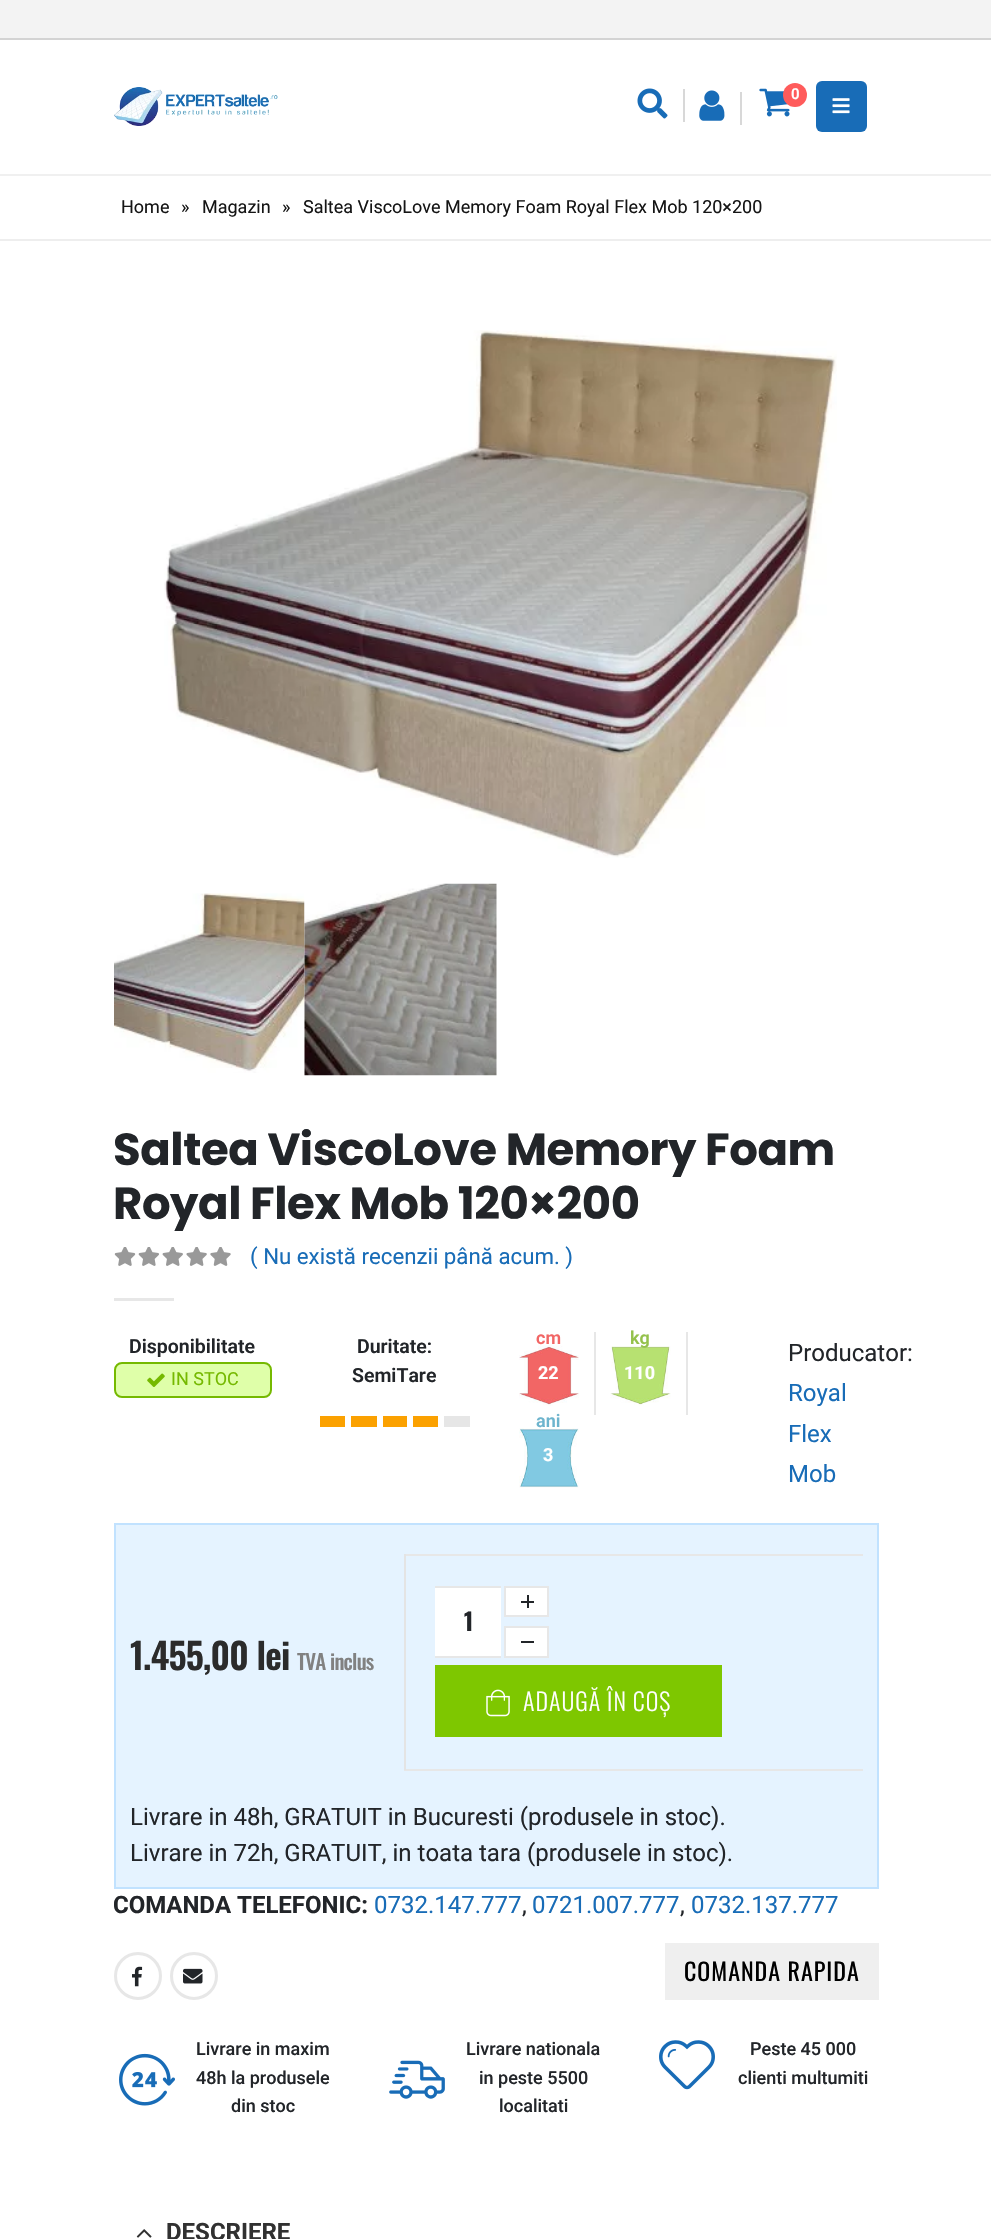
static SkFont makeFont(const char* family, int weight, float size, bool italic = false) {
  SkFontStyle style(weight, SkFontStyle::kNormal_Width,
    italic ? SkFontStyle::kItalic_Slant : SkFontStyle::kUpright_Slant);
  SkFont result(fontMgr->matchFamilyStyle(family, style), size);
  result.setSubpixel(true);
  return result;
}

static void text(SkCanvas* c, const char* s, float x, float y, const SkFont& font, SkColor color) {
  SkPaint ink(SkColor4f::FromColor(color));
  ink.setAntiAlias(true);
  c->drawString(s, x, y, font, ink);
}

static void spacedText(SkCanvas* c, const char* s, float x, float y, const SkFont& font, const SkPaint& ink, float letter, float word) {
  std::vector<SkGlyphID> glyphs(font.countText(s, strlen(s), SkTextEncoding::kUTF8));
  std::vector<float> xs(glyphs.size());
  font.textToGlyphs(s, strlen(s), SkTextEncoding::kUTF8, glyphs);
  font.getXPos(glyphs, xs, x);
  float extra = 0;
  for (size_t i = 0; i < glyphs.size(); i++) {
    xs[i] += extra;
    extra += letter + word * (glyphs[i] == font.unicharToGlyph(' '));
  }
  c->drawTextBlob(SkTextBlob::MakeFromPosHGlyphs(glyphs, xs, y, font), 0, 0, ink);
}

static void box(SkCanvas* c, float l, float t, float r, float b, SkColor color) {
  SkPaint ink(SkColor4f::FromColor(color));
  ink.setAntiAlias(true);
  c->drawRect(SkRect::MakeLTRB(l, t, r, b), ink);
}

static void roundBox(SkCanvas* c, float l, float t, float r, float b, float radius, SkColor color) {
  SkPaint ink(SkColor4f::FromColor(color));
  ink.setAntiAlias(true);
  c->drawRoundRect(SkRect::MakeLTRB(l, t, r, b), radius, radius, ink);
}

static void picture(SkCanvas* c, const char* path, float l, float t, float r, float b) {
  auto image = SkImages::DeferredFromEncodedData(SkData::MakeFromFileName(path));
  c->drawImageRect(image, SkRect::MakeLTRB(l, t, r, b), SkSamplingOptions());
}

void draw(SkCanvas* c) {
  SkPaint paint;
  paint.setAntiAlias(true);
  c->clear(0xffffffff);
  box(c, 0, 0, 991, 38, 0xfff3f3f3);
  box(c, 0, 38, 991, 40, 0xffd3d3d3);
  picture(c, "img_01.png", 114, 87, 278, 126);
  box(c, 683, 89, 685, 122, 0xffd8d8d8);
  picture(c, "img_02.png", 637, 88, 668, 119);
  box(c, 740, 92, 742, 125, 0xffd8d8d8);
  picture(c, "img_03.png", 699, 90, 725, 121);
  picture(c, "img_04.png", 759, 88, 790, 117);
  paint.setColor(0xffff5b5b);
  c->drawCircle(795, 95, 12, paint);
  SkFont face1 = makeFont("Roboto", 600, 15);
  text(c, "0", 791, 99, face1, 0xffffffff);
  roundBox(c, 816, 81, 867, 132, 6, 0xff186cb7);
  picture(c, "img_05.png", 832, 98, 850, 114);
  box(c, 0, 174, 991, 176, 0xfff0f0f0);
  box(c, 0, 239, 991, 241, 0xffeeeeee);
  SkFont face2 = makeFont("Roboto", 400, 18);
  text(c, "Home", 121, 213, face2, 0xff151515);
  text(c, "»", 181, 213, face2, 0xff151515);
  text(c, "Magazin", 202, 213, face2, 0xff151515);
  text(c, "»", 282, 213, face2, 0xff151515);
  text(c, "Saltea ViscoLove Memory Foam Royal Flex Mob 120×200", 303, 213, face2, 0xff151515);
  picture(c, "img_06.png", 164, 330, 837, 858);
  picture(c, "img_07.png", 114, 893, 305, 1073);
  picture(c, "img_08.png", 304, 883, 497, 1076);
  SkFont face3 = makeFont("Poppins", 700, 45);
  paint.setColor(0xff222529);
  spacedText(c, "Saltea ViscoLove Memory Foam", 113, 1165, face3, paint, -0.45f, 0);
  spacedText(c, "Royal Flex Mob 120×200", 113, 1219, face3, paint, -0.45f, 0);
  picture(c, "img_09.png", 114, 1247, 231, 1266);
  SkFont face4 = makeFont("Roboto", 400, 22.25f);
  text(c, "( Nu există recenzii până acum. )", 250, 1264, face4, 0xff186cb7);
  box(c, 114, 1298, 174, 1301, 0xffe7e7e7);
  SkFont face5 = makeFont("Roboto", 600, 19.5f);
  text(c, "Disponibilitate", 129, 1353, face5, 0xff222529);
  paint.setColor(0xffdfffa9);
  c->drawRoundRect(SkRect::MakeLTRB(115, 1363, 271, 1397), 7, 7, paint);
  paint.setStyle(SkPaint::kStroke_Style);
  paint.setStrokeWidth(2);
  paint.setColor(0xff75b900);
  c->drawRoundRect(SkRect::MakeLTRB(115, 1363, 271, 1397), 7, 7, paint);
  picture(c, "img_10.png", 147, 1373, 165, 1387);
  text(c, "IN STOC", 171, 1385, face2, 0xff75b900);
  text(c, "Duritate:", 357, 1353, face5, 0xff222529);
  text(c, "SemiTare", 352, 1382, face5, 0xff222529);
  box(c, 320, 1416, 345, 1427, 0xfffba100);
  box(c, 351, 1416, 377, 1427, 0xfffba100);
  box(c, 383, 1416, 407, 1427, 0xfffba100);
  box(c, 413, 1416, 438, 1427, 0xfffba100);
  box(c, 444, 1416, 470, 1427, 0xffe6e6e6);
  box(c, 594, 1332, 596, 1415, 0xffe7e7e7);
  SkFont face6 = makeFont("Roboto", 600, 18);
  text(c, "cm", 536, 1344, face6, 0xfff26665);
  picture(c, "img_11.png", 519, 1345, 579, 1406);
  SkFont face7 = makeFont("Roboto", 700, 18);
  text(c, "22", 538, 1379, face7, 0xffffffff);
  box(c, 686, 1332, 688, 1415, 0xffe7e7e7);
  picture(c, "img_12.png", 610, 1346, 671, 1406);
  text(c, "kg", 630, 1344, face6, 0xff94c14b);
  text(c, "110", 624, 1379, face7, 0xffffffff);
  text(c, "ani", 536, 1427, face6, 0xff6db4cd);
  picture(c, "img_13.png", 519, 1428, 579, 1488);
  text(c, "3", 543, 1461, face7, 0xffffffff);
  SkFont face8 = makeFont("Roboto", 400, 24);
  text(c, "Producator:", 788, 1361, face8, 0xff222529);
  text(c, "Royal", 788, 1401, face8, 0xff186cb7);
  text(c, "Flex", 788, 1442, face8, 0xff186cb7);
  text(c, "Mob", 788, 1482, face8, 0xff186cb7);
  paint.setStyle(SkPaint::kFill_Style);
  paint.setColor(0xffe5f3ff);
  c->drawRect(SkRect::MakeLTRB(115, 1524, 878, 1888), paint);
  paint.setStyle(SkPaint::kStroke_Style);
  paint.setColor(0xffc1e2ff);
  c->drawRect(SkRect::MakeLTRB(115, 1524, 878, 1888), paint);
  SkFont face9 = makeFont("Oswald", 600, 36);
  paint.setStyle(SkPaint::kFill_Style);
  paint.setColor(0xff2b2b2b);
  spacedText(c, "1.455,00 lei", 130, 1670, face9, paint, -0.75f, 0);
  SkFont face10 = makeFont("Oswald", 500, 21);
  paint.setColor(0xff818181);
  spacedText(c, "TVA inclus", 297, 1670, face10, paint, -0.75f, 0);
  box(c, 404, 1554, 863, 1556, 0xffe7e7e7);
  box(c, 404, 1769, 863, 1771, 0xffe7e7e7);
  box(c, 404, 1554, 406, 1770, 0xffe4e4e4);
  paint.setColor(0xffffffff);
  c->drawRect(SkRect::MakeLTRB(505, 1587, 548, 1616), paint);
  paint.setStyle(SkPaint::kStroke_Style);
  paint.setColor(0xffe7e7e7);
  c->drawRect(SkRect::MakeLTRB(505, 1587, 548, 1616), paint);
  box(c, 521, 1601, 534, 1603, 0xff222529);
  box(c, 527, 1595, 529, 1608, 0xff222529);
  box(c, 435, 1588, 501, 1656, 0xffffffff);
  box(c, 435, 1586, 501, 1588, 0xffe7e7e7);
  box(c, 435, 1656, 501, 1658, 0xffe7e7e7);
  SkFont face11 = makeFont("Oswald", 700, 24);
  text(c, "1", 464, 1631, face11, 0xff222529);
  paint.setStyle(SkPaint::kFill_Style);
  paint.setColor(0xffffffff);
  c->drawRect(SkRect::MakeLTRB(505, 1627, 548, 1657), paint);
  paint.setStyle(SkPaint::kStroke_Style);
  paint.setColor(0xffe7e7e7);
  c->drawRect(SkRect::MakeLTRB(505, 1627, 548, 1657), paint);
  box(c, 521, 1641, 534, 1643, 0xff222529);
  box(c, 435, 1665, 722, 1737, 0xff7ec700);
  picture(c, "img_14.png", 486, 1689, 510, 1717);
  SkFont face12 = makeFont("Oswald", 300, 24);
  paint.setStyle(SkPaint::kFill_Style);
  paint.setColor(0xffffffff);
  spacedText(c, "ADAUGĂ ÎN COȘ", 523, 1711, face12, paint, 1, 0);
  text(c, "Livrare in 48h, GRATUIT in Bucuresti (produsele in stoc).", 130, 1825, face8, 0xff222529);
  text(c, "Livrare in 72h, GRATUIT, in toata tara (produsele in stoc).", 130, 1861, face8, 0xff222529);
  SkFont face13 = makeFont("Roboto", 700, 24);
  text(c, "COMANDA TELEFONIC:", 113, 1913, face13, 0xff222529);
  text(c, "0732.147.777", 374, 1913, face8, 0xff186cb7);
  text(c, ",", 522, 1913, face8, 0xff222529);
  text(c, "0721.007.777", 532, 1913, face8, 0xff186cb7);
  text(c, ",", 680, 1913, face8, 0xff222529);
  text(c, "0732.137.777", 691, 1913, face8, 0xff186cb7);
  paint.setStyle(SkPaint::kStroke_Style);
  paint.setStrokeWidth(3);
  paint.setColor(0xffe7e7e7);
  c->drawCircle(138, 1976, 22.5f, paint);
  picture(c, "img_15.png", 132, 1966, 143, 1987);
  c->drawCircle(194, 1976, 22.5f, paint);
  picture(c, "img_16.png", 183, 1968, 203, 1984);
  box(c, 665, 1943, 879, 2000, 0xffefefef);
  SkFont face14 = makeFont("Oswald", 400, 24);
  paint.setStyle(SkPaint::kFill_Style);
  paint.setColor(0xff000000);
  spacedText(c, "COMANDA RAPIDA", 684, 1981, face14, paint, 1, 0);
  picture(c, "img_17.png", 119, 2053, 175, 2106);
  SkFont face15 = makeFont("Roboto", 500, 18);
  text(c, "Livrare in maxim", 196, 2055, face15, 0xff222529);
  text(c, "48h la produsele", 196, 2084, face15, 0xff222529);
  text(c, "din stoc", 231, 2112, face15, 0xff222529);
  picture(c, "img_18.png", 389, 2060, 445, 2099);
  text(c, "Livrare nationala", 466, 2055, face15, 0xff222529);
  text(c, "in peste 5500", 479, 2084, face15, 0xff222529);
  text(c, "localitati", 499, 2112, face15, 0xff222529);
  picture(c, "img_19.png", 659, 2040, 715, 2090);
  text(c, "Peste 45 000", 750, 2055, face15, 0xff222529);
  text(c, "clienti multumiti", 738, 2084, face15, 0xff222529);
  picture(c, "img_20.png", 136, 2229, 152, 2238);
  text(c, "DESCRIERE", 166, 2240, face13, 0xff313131);
}
